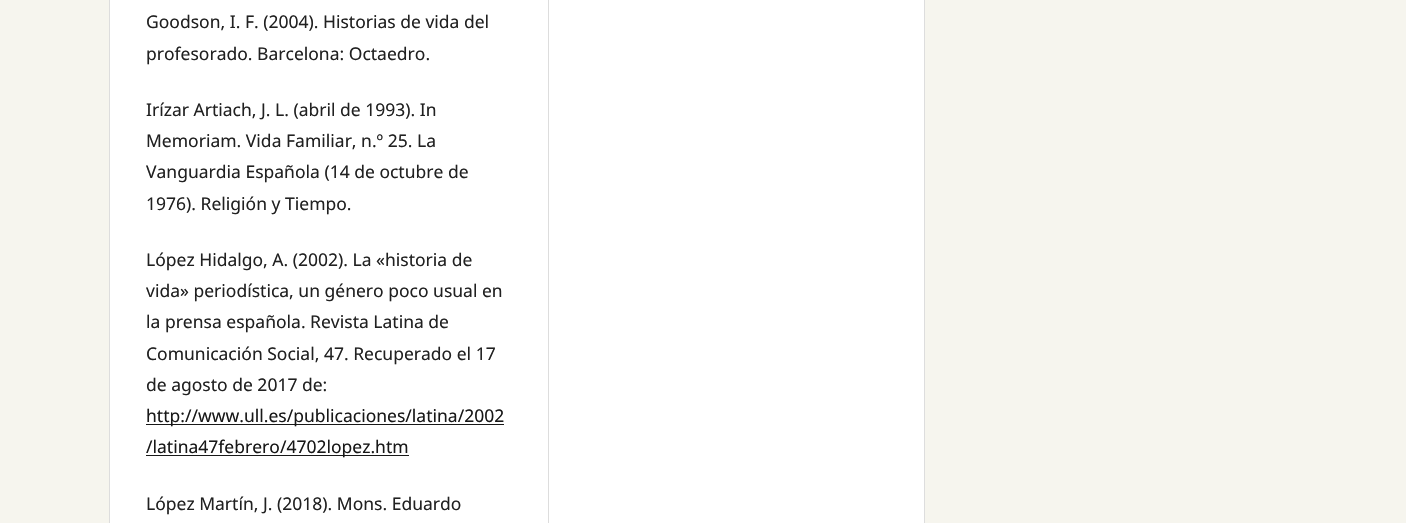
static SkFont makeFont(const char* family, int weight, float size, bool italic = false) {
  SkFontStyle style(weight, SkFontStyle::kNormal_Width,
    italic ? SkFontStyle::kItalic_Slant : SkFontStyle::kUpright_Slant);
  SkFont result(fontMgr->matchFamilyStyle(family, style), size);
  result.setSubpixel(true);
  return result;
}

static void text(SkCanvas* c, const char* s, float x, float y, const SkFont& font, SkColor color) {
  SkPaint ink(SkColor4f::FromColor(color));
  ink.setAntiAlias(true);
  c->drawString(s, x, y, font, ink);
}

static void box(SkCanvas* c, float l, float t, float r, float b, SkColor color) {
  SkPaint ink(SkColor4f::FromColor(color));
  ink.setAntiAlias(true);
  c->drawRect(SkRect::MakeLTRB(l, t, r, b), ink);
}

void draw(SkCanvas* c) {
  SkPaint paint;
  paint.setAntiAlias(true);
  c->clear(0xfff6f5ee);
  box(c, 110, 0, 924, 523, 0xffffffff);
  box(c, 109, 0, 110, 523, 0xffdddddd);
  box(c, 548, 0, 549, 523, 0xffdddddd);
  SkFont face1 = makeFont("Noto Sans", 400, 17.5f);
  text(c, "Goodson, I. F. (2004). Historias de vida del", 146, 28, face1, 0xff212121);
  text(c, "profesorado. Barcelona: Octaedro.", 146, 60, face1, 0xff212121);
  text(c, "Irízar Artiach, J. L. (abril de 1993). In", 146, 116, face1, 0xff212121);
  text(c, "Memoriam. Vida Familiar, n.º 25. La", 146, 147, face1, 0xff212121);
  text(c, "Vanguardia Española (14 de octubre de", 146, 178, face1, 0xff212121);
  text(c, "1976). Religión y Tiempo.", 146, 210, face1, 0xff212121);
  text(c, "López Hidalgo, A. (2002). La «historia de", 146, 266, face1, 0xff212121);
  text(c, "vida» periodística, un género poco usual en", 146, 297, face1, 0xff212121);
  text(c, "la prensa española. Revista Latina de", 146, 328, face1, 0xff212121);
  text(c, "Comunicación Social, 47. Recuperado el 17", 146, 360, face1, 0xff212121);
  text(c, "de agosto de 2017 de:", 146, 391, face1, 0xff212121);
  box(c, 146, 424, 504, 425, 0xff181818);
  text(c, "http://www.ull.es/publicaciones/latina/2002", 146, 422, face1, 0xff181818);
  box(c, 146, 455, 409, 456, 0xff181818);
  text(c, "/latina47febrero/4702lopez.htm", 146, 453, face1, 0xff181818);
  text(c, "López Martín, J. (2018). Mons. Eduardo", 146, 510, face1, 0xff212121);
  box(c, 924, 0, 925, 523, 0xffdddddd);
}
